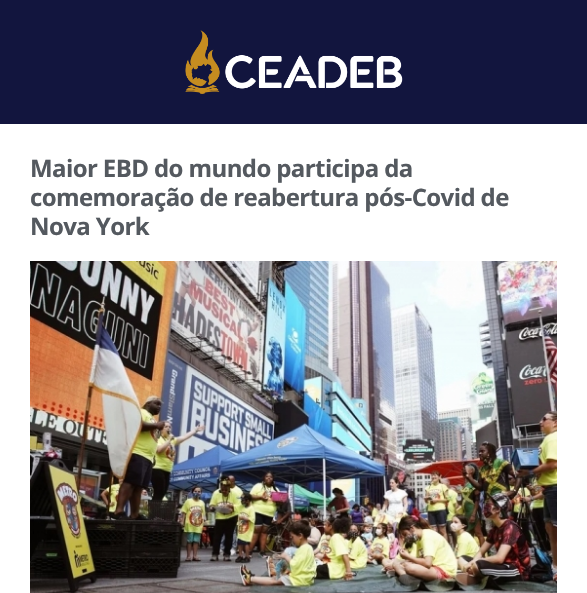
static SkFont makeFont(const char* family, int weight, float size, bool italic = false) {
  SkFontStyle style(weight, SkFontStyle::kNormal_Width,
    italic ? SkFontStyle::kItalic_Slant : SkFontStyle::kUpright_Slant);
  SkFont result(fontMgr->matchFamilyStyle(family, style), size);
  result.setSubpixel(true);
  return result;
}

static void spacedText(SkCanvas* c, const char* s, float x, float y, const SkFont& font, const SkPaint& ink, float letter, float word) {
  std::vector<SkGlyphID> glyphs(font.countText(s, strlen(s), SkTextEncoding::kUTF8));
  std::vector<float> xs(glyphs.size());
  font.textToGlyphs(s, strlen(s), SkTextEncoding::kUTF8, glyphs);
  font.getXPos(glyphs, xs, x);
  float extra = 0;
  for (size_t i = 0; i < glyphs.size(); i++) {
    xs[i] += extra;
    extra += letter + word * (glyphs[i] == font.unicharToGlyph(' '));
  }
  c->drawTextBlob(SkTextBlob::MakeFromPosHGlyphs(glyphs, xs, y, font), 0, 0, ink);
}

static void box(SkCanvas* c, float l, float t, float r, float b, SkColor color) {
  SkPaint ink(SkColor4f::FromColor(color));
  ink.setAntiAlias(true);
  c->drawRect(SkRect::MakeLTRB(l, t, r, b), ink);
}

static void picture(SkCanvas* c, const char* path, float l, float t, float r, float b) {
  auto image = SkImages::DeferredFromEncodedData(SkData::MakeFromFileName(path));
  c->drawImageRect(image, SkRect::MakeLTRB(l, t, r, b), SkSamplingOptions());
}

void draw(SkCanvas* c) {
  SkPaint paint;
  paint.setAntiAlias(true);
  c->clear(0xffffffff);
  box(c, 0, 0, 587, 124, 0xff12153e);
  picture(c, "img_01.png", 185, 30, 403, 94);
  SkFont face1 = makeFont("Open Sans", 700, 24);
  paint.setColor(0xff54595f);
  spacedText(c, "Maior EBD do mundo participa da", 30, 177, face1, paint, -0.6f, 0);
  spacedText(c, "comemoração de reabertura pós-Covid de", 30, 206, face1, paint, -0.6f, 0);
  spacedText(c, "Nova York", 30, 235, face1, paint, -0.6f, 0);
  picture(c, "img_02.png", 30, 261, 557, 593);
}
